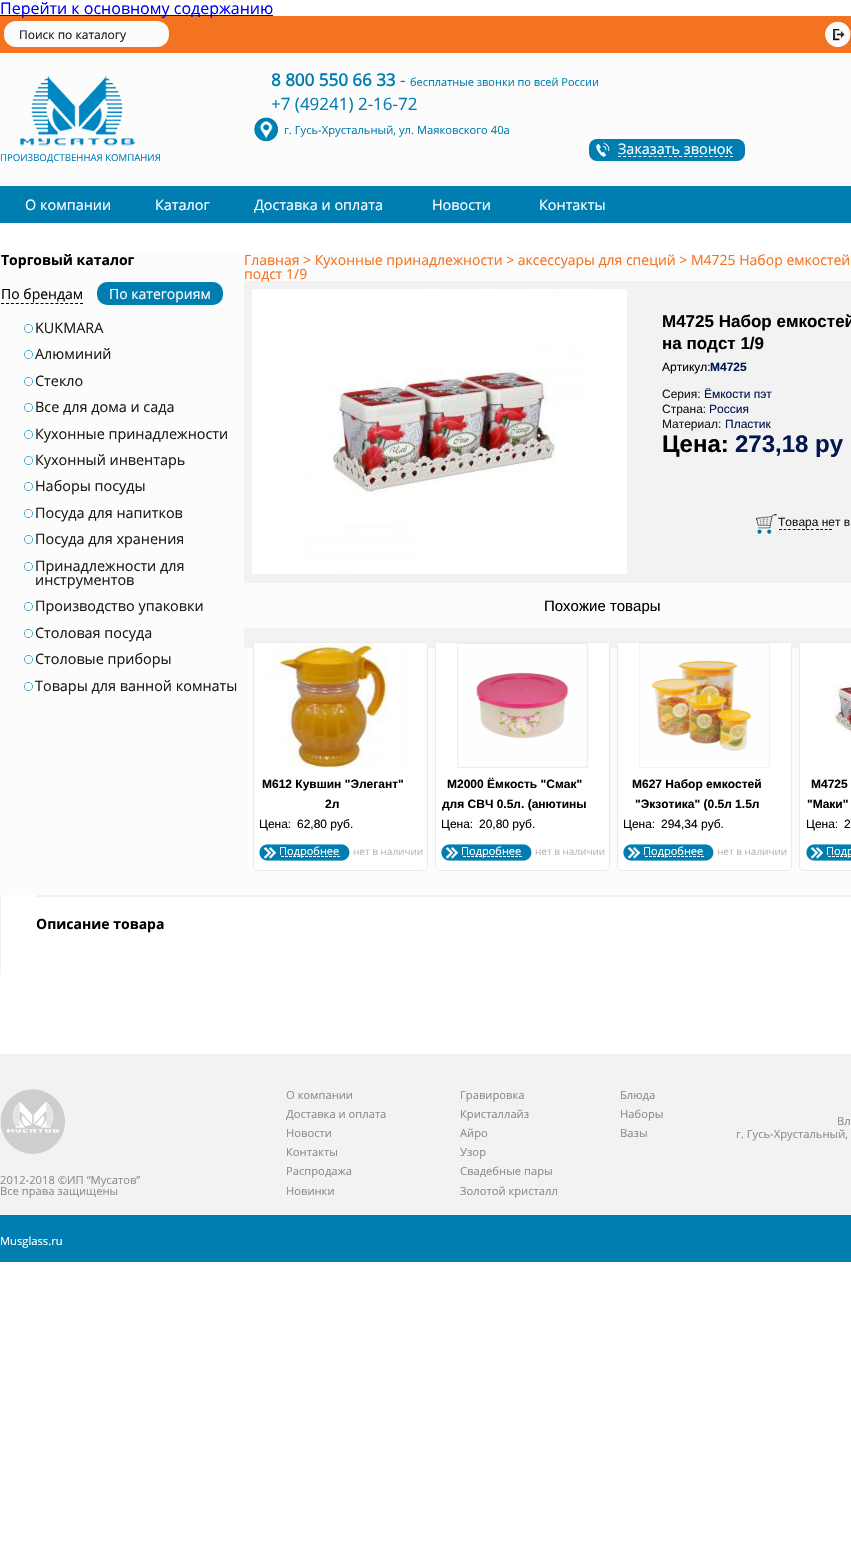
static SkFont makeFont(const char* family, int weight, float size, bool italic = false) {
  SkFontStyle style(weight, SkFontStyle::kNormal_Width,
    italic ? SkFontStyle::kItalic_Slant : SkFontStyle::kUpright_Slant);
  SkFont result(fontMgr->matchFamilyStyle(family, style), size);
  result.setSubpixel(true);
  return result;
}

static void text(SkCanvas* c, const char* s, float x, float y, const SkFont& font, SkColor color) {
  SkPaint ink(SkColor4f::FromColor(color));
  ink.setAntiAlias(true);
  c->drawString(s, x, y, font, ink);
}

static void box(SkCanvas* c, float l, float t, float r, float b, SkColor color) {
  SkPaint ink(SkColor4f::FromColor(color));
  ink.setAntiAlias(true);
  c->drawRect(SkRect::MakeLTRB(l, t, r, b), ink);
}

static void roundBox(SkCanvas* c, float l, float t, float r, float b, float radius, SkColor color) {
  SkPaint ink(SkColor4f::FromColor(color));
  ink.setAntiAlias(true);
  c->drawRoundRect(SkRect::MakeLTRB(l, t, r, b), radius, radius, ink);
}

static void picture(SkCanvas* c, const char* path, float l, float t, float r, float b) {
  auto image = SkImages::DeferredFromEncodedData(SkData::MakeFromFileName(path));
  c->drawImageRect(image, SkRect::MakeLTRB(l, t, r, b), SkSamplingOptions());
}

void draw(SkCanvas* c) {
  SkPaint paint;
  paint.setAntiAlias(true);
  c->clear(0xffffffff);
  box(c, 0, 15, 273, 16, 0xff0000ee);
  box(c, 0, 16, 851, 53, 0xfff47321);
  SkFont face1 = makeFont("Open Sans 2", 400, 16);
  text(c, "Перейти к основному содержанию", 0, 14, face1, 0xff0000ee);
  roundBox(c, 4, 21, 169, 47, 12, 0xfffbfbfb);
  SkFont face2 = makeFont("Open Sans", 400, 12);
  text(c, "Поиск по каталогу", 19, 39, face2, 0xff1a1a1a);
  picture(c, "img_01.png", 825, 21, 851, 48);
  box(c, 0, 53, 851, 186, 0xfffcfcfc);
  SkFont face3 = makeFont("Open Sans 2", 700, 17);
  text(c, "8 800 550 66 33", 271, 86, face3, 0xff007eb2);
  SkFont face4 = makeFont("Open Sans 2", 400, 17);
  text(c, "-", 400, 86, face4, 0xff007eb2);
  SkFont face5 = makeFont("Open Sans 2", 400, 11);
  text(c, "бесплатные звонки по всей России", 410, 86, face5, 0xff007eb2);
  text(c, "+7 (49241) 2-16-72", 271, 110, face4, 0xff007eb2);
  picture(c, "img_02.png", 254, 117, 279, 142);
  SkFont face6 = makeFont("Open Sans", 400, 11.2f);
  text(c, "г. Гусь-Хрустальный, ул. Маяковского 40а", 284, 134, face6, 0xff007eb2);
  roundBox(c, 589, 139, 745, 161, 8, 0xff007eb2);
  picture(c, "img_03.png", 595, 142, 610, 157);
  paint.setStyle(SkPaint::kStroke_Style);
  paint.setStrokeWidth(1);
  paint.setColor(0xfffcfcfc);
  paint.setPathEffect(SkDashPathEffect::Make({{3, 2.09f}}, 0));
  c->drawPath(SkPathBuilder().moveTo(618, 156.5f).lineTo(733, 156.5f).detach(), paint);
  paint.setPathEffect(nullptr);
  SkFont face7 = makeFont("Open Sans", 400, 14.4f);
  text(c, "Заказать звонок", 618, 154, face7, 0xffffffff);
  picture(c, "img_04.png", 20, 76, 135, 146);
  SkFont face8 = makeFont("Open Sans", 400, 9.6f);
  text(c, "ПРОИЗВОДСТВЕННАЯ КОМПАНИЯ", 0, 161, face8, 0xff007eb2);
  box(c, 0, 186, 851, 223, 0xff007eb2);
  text(c, "О компании", 25, 210, face7, 0xffffffff);
  text(c, "Каталог", 155, 210, face7, 0xffffffff);
  text(c, "Доставка и оплата", 254, 210, face7, 0xffffffff);
  text(c, "Новости", 432, 210, face7, 0xffffffff);
  text(c, "Контакты", 539, 210, face7, 0xffffffff);
  box(c, 0, 253, 851, 895, 0xfffcfcfc);
  SkFont face9 = makeFont("Open Sans", 700, 14);
  text(c, "Торговый каталог", 1, 265, face9, 0xff000000);
  SkFont face10 = makeFont("Open Sans 2", 400, 14);
  text(c, "По брендам", 1, 299, face10, 0xff000000);
  paint.setColor(0xff000000);
  paint.setPathEffect(SkDashPathEffect::Make({{3, 1.94f}}, 0));
  c->drawPath(SkPathBuilder().moveTo(1, 303.5f).lineTo(83, 303.5f).detach(), paint);
  paint.setPathEffect(nullptr);
  roundBox(c, 97, 282, 223, 305, 10, 0xff007eb2);
  text(c, "По категориям", 109, 299, face10, 0xffffffff);
  picture(c, "img_05.png", 24, 324, 33, 333);
  text(c, "KUKMARA", 35, 333, face7, 0xff1a1a1a);
  picture(c, "img_05.png", 24, 350, 33, 359);
  text(c, "Алюминий", 35, 359, face7, 0xff1a1a1a);
  picture(c, "img_05.png", 24, 377, 33, 386);
  text(c, "Стекло", 35, 386, face7, 0xff1a1a1a);
  picture(c, "img_05.png", 24, 403, 33, 412);
  text(c, "Все для дома и сада", 35, 412, face7, 0xff1a1a1a);
  picture(c, "img_05.png", 24, 430, 33, 439);
  text(c, "Кухонные принадлежности", 35, 439, face7, 0xff1a1a1a);
  picture(c, "img_05.png", 24, 456, 33, 465);
  text(c, "Кухонный инвентарь", 35, 465, face7, 0xff1a1a1a);
  picture(c, "img_05.png", 24, 482, 33, 491);
  text(c, "Наборы посуды", 35, 491, face7, 0xff1a1a1a);
  picture(c, "img_05.png", 24, 509, 33, 518);
  text(c, "Посуда для напитков", 35, 518, face7, 0xff1a1a1a);
  picture(c, "img_05.png", 24, 535, 33, 544);
  text(c, "Посуда для хранения", 35, 544, face7, 0xff1a1a1a);
  picture(c, "img_05.png", 24, 562, 33, 571);
  text(c, "Принадлежности для", 35, 571, face7, 0xff1a1a1a);
  text(c, "инструментов", 35, 585, face7, 0xff1a1a1a);
  picture(c, "img_05.png", 24, 602, 33, 611);
  text(c, "Производство упаковки", 35, 611, face7, 0xff1a1a1a);
  picture(c, "img_05.png", 24, 629, 33, 638);
  text(c, "Столовая посуда", 35, 638, face7, 0xff1a1a1a);
  picture(c, "img_05.png", 24, 655, 33, 664);
  text(c, "Столовые приборы", 35, 664, face7, 0xff1a1a1a);
  picture(c, "img_05.png", 24, 682, 33, 691);
  text(c, "Товары для ванной комнаты", 35, 691, face7, 0xff1a1a1a);
  text(c, "Главная > Кухонные принадлежности > аксессуары для специй > М4725 Набор емкостей", 244, 265, face10, 0xfff47320);
  box(c, 244, 281, 851, 583, 0xfff2f2f2);
  text(c, "подст 1/9", 244, 279, face10, 0xfff47320);
  picture(c, "img_06.png", 252, 289, 627, 574);
  SkFont face11 = makeFont("Liberation Sans", 700, 17);
  text(c, "М4725 Набор емкостей", 662, 327, face11, 0xff000000);
  text(c, "на подст 1/9", 662, 349, face11, 0xff000000);
  SkFont face12 = makeFont("Liberation Sans", 400, 12);
  text(c, "Артикул:", 662, 371, face12, 0xff000000);
  SkFont face13 = makeFont("Liberation Sans", 700, 12);
  text(c, "М4725", 710, 371, face13, 0xff011650);
  text(c, "Серия:", 662, 398, face12, 0xff1a1a1a);
  text(c, "Ёмкости пэт", 704, 398, face12, 0xff011650);
  text(c, "Страна:", 662, 413, face12, 0xff1a1a1a);
  text(c, "Россия", 709, 413, face12, 0xff011650);
  text(c, "Материал:", 662, 428, face12, 0xff1a1a1a);
  text(c, "Пластик", 725, 428, face12, 0xff011650);
  SkFont face14 = makeFont("Liberation Sans", 700, 24);
  text(c, "Цена:", 662, 452, face14, 0xff000000);
  text(c, "273,18 ру", 735, 452, face14, 0xff011650);
  picture(c, "img_07.png", 756, 514, 832, 534);
  text(c, "Товара нет в", 778, 526, face12, 0xff1a1a1a);
  SkFont face15 = makeFont("Liberation Sans", 400, 15);
  text(c, "Похожие товары", 544, 611, face15, 0xff000000);
  box(c, 244, 628, 851, 648, 0xfff2f2f2);
  paint.setStyle(SkPaint::kFill_Style);
  paint.setColor(0xffffffff);
  c->drawRoundRect(SkRect::MakeLTRB(253.5f, 642.5f, 427.5f, 870.5f), 4.5f, 4.5f, paint);
  paint.setStyle(SkPaint::kStroke_Style);
  paint.setColor(0xffeaeaea);
  c->drawRoundRect(SkRect::MakeLTRB(253.5f, 642.5f, 427.5f, 870.5f), 4.5f, 4.5f, paint);
  picture(c, "img_08.png", 254, 643, 427, 768);
  text(c, "М612 Кувшин \"Элегант\"", 262, 788, face13, 0xff000000);
  text(c, "2л", 325, 808, face13, 0xff000000);
  text(c, "Цена:", 259, 828, face12, 0xff000000);
  text(c, "62,80 руб.", 297, 828, face12, 0xff000000);
  picture(c, "img_09.png", 259, 844, 350, 861);
  SkFont face16 = makeFont("Open Sans", 400, 11);
  text(c, "Подробнее", 279, 855, face16, 0xffffffff);
  SkFont face17 = makeFont("Open Sans", 400, 10);
  text(c, "нет в наличии", 353, 855, face17, 0xffb7b7b7);
  paint.setStyle(SkPaint::kFill_Style);
  paint.setColor(0xffffffff);
  c->drawRoundRect(SkRect::MakeLTRB(435.5f, 642.5f, 609.5f, 870.5f), 4.5f, 4.5f, paint);
  paint.setStyle(SkPaint::kStroke_Style);
  paint.setColor(0xffeaeaea);
  c->drawRoundRect(SkRect::MakeLTRB(435.5f, 642.5f, 609.5f, 870.5f), 4.5f, 4.5f, paint);
  picture(c, "img_10.png", 436, 643, 609, 768);
  text(c, "М2000 Ёмкость \"Смак\"", 447, 788, face13, 0xff000000);
  text(c, "для СВЧ 0.5л. (анютины", 442, 808, face13, 0xff000000);
  text(c, "Цена:", 441, 828, face12, 0xff000000);
  text(c, "20,80 руб.", 479, 828, face12, 0xff000000);
  picture(c, "img_09.png", 441, 844, 532, 861);
  text(c, "Подробнее", 461, 855, face16, 0xffffffff);
  text(c, "нет в наличии", 535, 855, face17, 0xffb7b7b7);
  paint.setStyle(SkPaint::kFill_Style);
  paint.setColor(0xffffffff);
  c->drawRoundRect(SkRect::MakeLTRB(617.5f, 642.5f, 791.5f, 870.5f), 4.5f, 4.5f, paint);
  paint.setStyle(SkPaint::kStroke_Style);
  paint.setColor(0xffeaeaea);
  c->drawRoundRect(SkRect::MakeLTRB(617.5f, 642.5f, 791.5f, 870.5f), 4.5f, 4.5f, paint);
  picture(c, "img_11.png", 618, 643, 791, 768);
  text(c, "М627 Набор емкостей", 632, 788, face13, 0xff000000);
  text(c, "\"Экзотика\" (0.5л 1.5л", 635, 808, face13, 0xff000000);
  text(c, "Цена:", 623, 828, face12, 0xff000000);
  text(c, "294,34 руб.", 661, 828, face12, 0xff000000);
  picture(c, "img_09.png", 623, 844, 714, 861);
  text(c, "Подробнее", 643, 855, face16, 0xffffffff);
  text(c, "нет в наличии", 717, 855, face17, 0xffb7b7b7);
  paint.setStyle(SkPaint::kFill_Style);
  paint.setColor(0xffffffff);
  c->drawRoundRect(SkRect::MakeLTRB(799.5f, 642.5f, 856.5f, 870.5f), 4.5f, 4.5f, paint);
  paint.setStyle(SkPaint::kStroke_Style);
  paint.setColor(0xffeaeaea);
  c->drawRoundRect(SkRect::MakeLTRB(799.5f, 642.5f, 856.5f, 870.5f), 4.5f, 4.5f, paint);
  picture(c, "img_12.png", 800, 643, 851, 735);
  text(c, "М4725", 811, 788, face13, 0xff000000);
  text(c, "\"Маки\"", 807, 808, face13, 0xff000000);
  text(c, "Цена:", 806, 828, face12, 0xff000000);
  text(c, "2", 844, 828, face12, 0xff000000);
  picture(c, "img_13.png", 806, 844, 851, 861);
  text(c, "Подр", 826, 855, face16, 0xffffffff);
  box(c, 0, 895, 1, 974, 0xfff2f2f2);
  box(c, 36, 895, 851, 897, 0xfff2f2f2);
  text(c, "Описание товара", 36, 929, face9, 0xff000000);
  box(c, 0, 1054, 851, 1215, 0xfff2f2f2);
  text(c, "О компании", 286, 1099, face6, 0xff8c8c8c);
  text(c, "Доставка и оплата", 286, 1118, face6, 0xff8c8c8c);
  text(c, "Новости", 286, 1137, face6, 0xff8c8c8c);
  text(c, "Контакты", 286, 1156, face6, 0xff8c8c8c);
  text(c, "Распродажа", 286, 1175, face6, 0xff8c8c8c);
  text(c, "Новинки", 286, 1195, face6, 0xff8c8c8c);
  text(c, "Гравировка", 460, 1099, face6, 0xff8c8c8c);
  text(c, "Кристаллайз", 460, 1118, face6, 0xff8c8c8c);
  text(c, "Айро", 460, 1137, face6, 0xff8c8c8c);
  text(c, "Узор", 460, 1156, face6, 0xff8c8c8c);
  text(c, "Свадебные пары", 460, 1175, face6, 0xff8c8c8c);
  text(c, "Золотой кристалл", 460, 1195, face6, 0xff8c8c8c);
  text(c, "Блюда", 620, 1099, face6, 0xff8c8c8c);
  text(c, "Наборы", 620, 1118, face6, 0xff8c8c8c);
  text(c, "Вазы", 620, 1137, face6, 0xff8c8c8c);
  text(c, "Вл", 837, 1125, face6, 0xff8c8c8c);
  text(c, "г. Гусь-Хрустальный,", 736, 1138, face6, 0xff8c8c8c);
  picture(c, "img_14.png", 0, 1089, 65, 1154);
  text(c, "2012-2018 ©ИП “Мусатов”", 0, 1184, face6, 0xff8c8c8c);
  text(c, "Все права защищены", 0, 1195, face6, 0xff8c8c8c);
  box(c, 0, 1215, 851, 1262, 0xff007eb2);
  text(c, "Musglass.ru", 0, 1245, face6, 0xffffffff);
}
